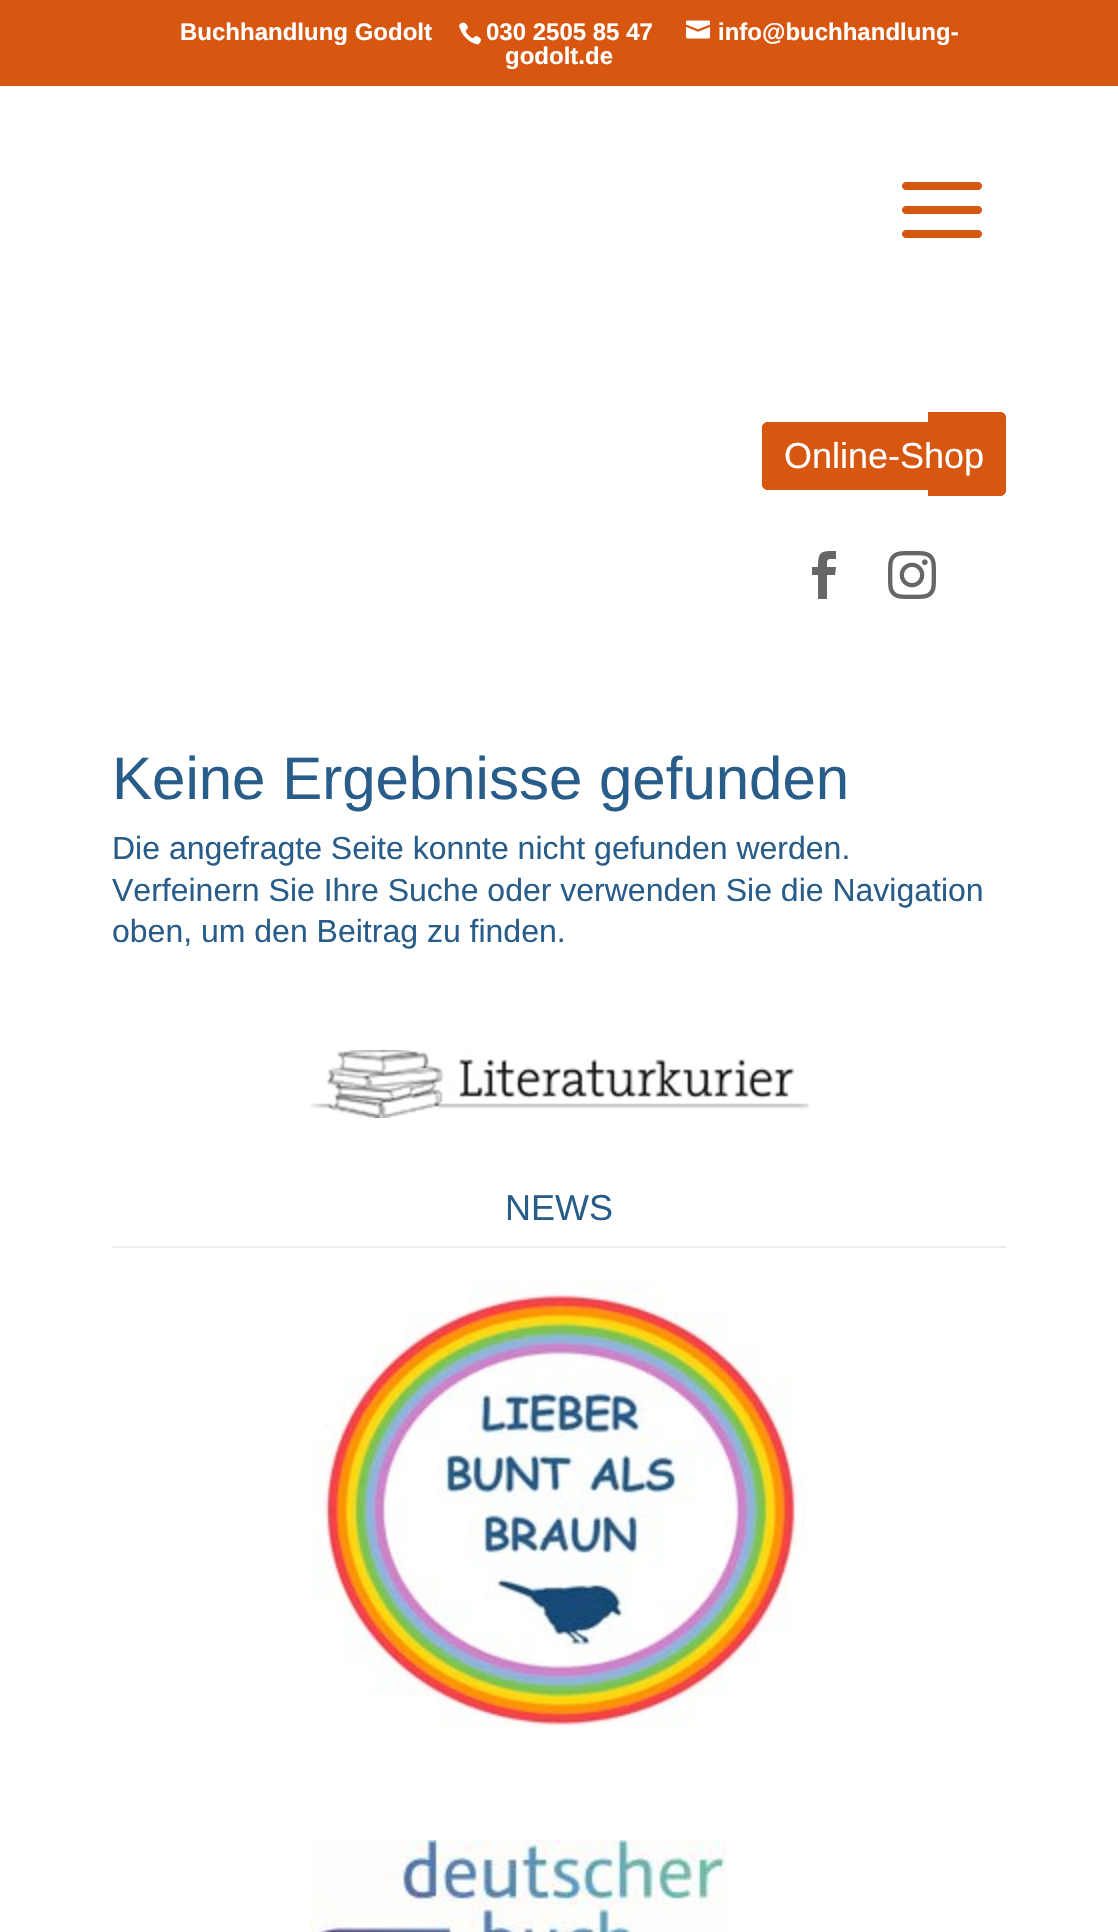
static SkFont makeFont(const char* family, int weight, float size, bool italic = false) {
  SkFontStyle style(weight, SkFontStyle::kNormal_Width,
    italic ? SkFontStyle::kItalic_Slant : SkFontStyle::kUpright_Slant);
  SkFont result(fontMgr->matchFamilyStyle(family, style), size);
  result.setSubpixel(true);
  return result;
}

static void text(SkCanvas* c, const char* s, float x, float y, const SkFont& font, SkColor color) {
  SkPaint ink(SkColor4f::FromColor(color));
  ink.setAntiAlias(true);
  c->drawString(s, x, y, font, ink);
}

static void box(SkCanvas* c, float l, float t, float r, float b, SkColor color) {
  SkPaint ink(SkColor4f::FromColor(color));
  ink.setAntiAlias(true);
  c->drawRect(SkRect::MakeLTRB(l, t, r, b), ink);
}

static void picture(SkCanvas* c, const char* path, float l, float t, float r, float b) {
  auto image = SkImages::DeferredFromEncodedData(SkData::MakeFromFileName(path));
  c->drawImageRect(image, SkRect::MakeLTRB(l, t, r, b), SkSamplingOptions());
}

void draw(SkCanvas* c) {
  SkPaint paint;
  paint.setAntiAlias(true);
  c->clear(0xffffffff);
  box(c, 0, 0, 1118, 86, 0xffd75710);
  SkFont face1 = makeFont("Liberation Sans", 700, 24);
  text(c, "Buchhandlung Godolt", 180, 40, face1, 0xffffffff);
  picture(c, "img_01.png", 459, 22, 481, 45);
  text(c, "030 2505 85 47", 486, 40, face1, 0xffffffff);
  picture(c, "img_02.png", 686, 20, 710, 39);
  text(c, "info@buchhandlung-", 718, 40, face1, 0xffffffff);
  text(c, "godolt.de", 505, 64, face1, 0xffffffff);
  picture(c, "img_03.png", 902, 182, 982, 238);
  paint.setColor(0xffd75610);
  c->drawPath(SkPathBuilder().moveTo(768, 422).lineTo(984, 422).lineTo(984, 490).lineTo(768, 490).cubicTo(764.5f, 490, 762, 487.5f, 762, 484).lineTo(762, 428).cubicTo(762, 424.5f, 764.5f, 422, 768, 422).close().detach(), paint);
  c->drawPath(SkPathBuilder(SkPathFillType::kEvenOdd).moveTo(768, 422).lineTo(984, 422).lineTo(984, 490).lineTo(768, 490).cubicTo(765, 490, 762, 487, 762, 484).lineTo(762, 428).cubicTo(762, 425, 765, 422, 768, 422).close().moveTo(768, 426).lineTo(984, 426).lineTo(984, 486).lineTo(768, 486).cubicTo(767, 486, 766, 485, 766, 484).lineTo(766, 428).cubicTo(766, 427, 767, 426, 768, 426).close().detach(), paint);
  c->drawPath(SkPathBuilder().moveTo(928, 412).lineTo(1000, 412).cubicTo(1003.5f, 412, 1006, 414.5f, 1006, 418).lineTo(1006, 490).cubicTo(1006, 493.5f, 1003.5f, 496, 1000, 496).lineTo(928, 496).close().detach(), paint);
  c->drawPath(SkPathBuilder(SkPathFillType::kEvenOdd).moveTo(928, 412).lineTo(1000, 412).cubicTo(1003, 412, 1006, 415, 1006, 418).lineTo(1006, 490).cubicTo(1006, 493, 1003, 496, 1000, 496).lineTo(928, 496).close().moveTo(928, 416).lineTo(1000, 416).cubicTo(1001, 416, 1002, 417, 1002, 418).lineTo(1002, 490).cubicTo(1002, 491, 1001, 492, 1000, 492).lineTo(928, 492).close().detach(), paint);
  SkFont face2 = makeFont("Liberation Sans", 400, 36);
  text(c, "Online-Shop", 784, 468, face2, 0xffffffff);
  paint.setColor(0xff666666);
  c->drawPath(SkPathBuilder().moveTo(818, 599).lineTo(827, 599).lineTo(827, 575).lineTo(835, 575).lineTo(836, 567).lineTo(827, 567).cubicTo(827, 558, 827, 559, 836, 559).lineTo(836, 551).cubicTo(821, 551, 818, 551, 818, 567).lineTo(812, 567).lineTo(812, 575).lineTo(818, 575).close().detach(), paint);
  picture(c, "img_04.png", 888, 551, 936, 599);
  SkFont face3 = makeFont("Liberation Sans", 400, 60);
  text(c, "Keine Ergebnisse gefunden", 112, 799, face3, 0xff295d89);
  SkFont face4 = makeFont("Liberation Sans", 400, 32);
  text(c, "Die angefragte Seite konnte nicht gefunden werden.", 112, 859, face4, 0xff295d89);
  text(c, "Verfeinern Sie Ihre Suche oder verwenden Sie die Navigation", 112, 901, face4, 0xff295d89);
  text(c, "oben, um den Beitrag zu finden.", 112, 942, face4, 0xff295d89);
  picture(c, "img_05.png", 310, 1050, 810, 1118);
  box(c, 112, 1246, 1006, 1248, 0xffeeeeee);
  text(c, "NEWS", 505, 1220, face2, 0xff295d89);
  picture(c, "img_06.png", 310, 1280, 806, 1729);
  picture(c, "img_07.png", 310, 1840, 727, 1932);
}
